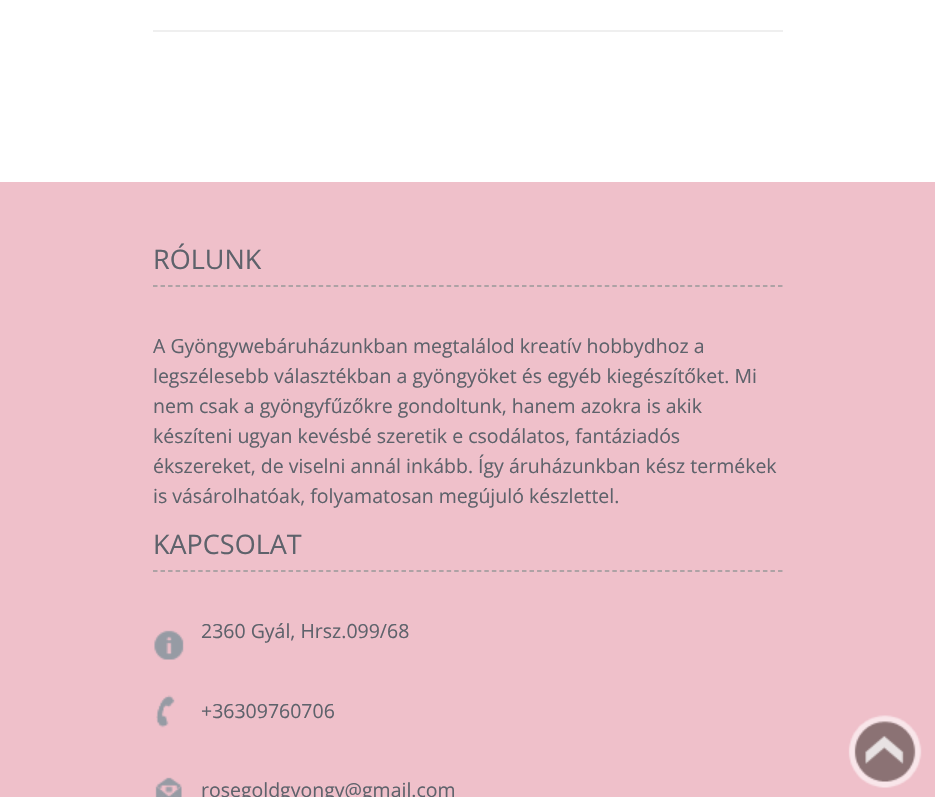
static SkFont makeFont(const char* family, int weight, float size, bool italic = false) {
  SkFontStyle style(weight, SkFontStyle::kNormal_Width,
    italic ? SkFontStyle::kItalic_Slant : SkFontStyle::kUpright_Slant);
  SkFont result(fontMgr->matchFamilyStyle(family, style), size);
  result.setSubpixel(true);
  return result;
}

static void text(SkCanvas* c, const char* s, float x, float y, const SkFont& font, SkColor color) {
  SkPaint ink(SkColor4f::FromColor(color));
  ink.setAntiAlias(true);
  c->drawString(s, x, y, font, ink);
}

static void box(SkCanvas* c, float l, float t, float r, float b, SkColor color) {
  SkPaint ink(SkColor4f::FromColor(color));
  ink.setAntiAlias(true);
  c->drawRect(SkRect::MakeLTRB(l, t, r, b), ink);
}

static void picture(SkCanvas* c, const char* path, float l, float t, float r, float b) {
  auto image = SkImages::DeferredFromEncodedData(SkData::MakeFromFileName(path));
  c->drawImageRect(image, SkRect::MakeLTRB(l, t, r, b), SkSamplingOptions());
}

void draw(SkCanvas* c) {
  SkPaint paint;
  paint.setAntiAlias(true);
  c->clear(0xffffffff);
  box(c, 153, 30, 783, 32, 0xffefefef);
  box(c, 0, 182, 935, 797, 0xffefc0ca);
  paint.setStyle(SkPaint::kStroke_Style);
  paint.setStrokeWidth(1.5f);
  paint.setColor(0xff999999);
  paint.setPathEffect(SkDashPathEffect::Make({{4.5f, 3.03f}}, 0));
  c->drawPath(SkPathBuilder().moveTo(153, 286).lineTo(783, 286).detach(), paint);
  paint.setPathEffect(nullptr);
  SkFont face1 = makeFont("Open Sans", 400, 27);
  text(c, "RÓLUNK", 153, 269, face1, 0xff5e626b);
  SkFont face2 = makeFont("Open Sans", 400, 19.5f);
  text(c, "A Gyöngywebáruházunkban megtalálod kreatív hobbydhoz a", 153, 353, face2, 0xff5e626b);
  text(c, "legszélesebb választékban a gyöngyöket és egyéb kiegészítőket. Mi", 153, 383, face2, 0xff5e626b);
  text(c, "nem csak a gyöngyfűzőkre gondoltunk, hanem azokra is akik", 153, 413, face2, 0xff5e626b);
  text(c, "készíteni ugyan kevésbé szeretik e csodálatos, fantáziadós", 153, 443, face2, 0xff5e626b);
  text(c, "ékszereket, de viselni annál inkább. Így áruházunkban kész termékek", 153, 473, face2, 0xff5e626b);
  text(c, "is vásárolhatóak, folyamatosan megújuló készlettel.", 153, 503, face2, 0xff5e626b);
  paint.setPathEffect(SkDashPathEffect::Make({{4.5f, 3.03f}}, 0));
  c->drawPath(SkPathBuilder().moveTo(153, 571).lineTo(783, 571).detach(), paint);
  paint.setPathEffect(nullptr);
  text(c, "KAPCSOLAT", 153, 554, face1, 0xff5e626b);
  picture(c, "img_01.png", 154, 630, 184, 660);
  text(c, "2360 Gyál, Hrsz.099/68", 201, 638, face2, 0xff5e626b);
  picture(c, "img_02.png", 156, 695, 175, 728);
  text(c, "+36309760706", 201, 718, face2, 0xff5e626b);
  picture(c, "img_03.png", 155, 777, 182, 797);
  text(c, "rosegoldgyongy@gmail.com", 201, 797, face2, 0xff5e626b);
  picture(c, "img_04.png", 848, 715, 922, 788);
}
